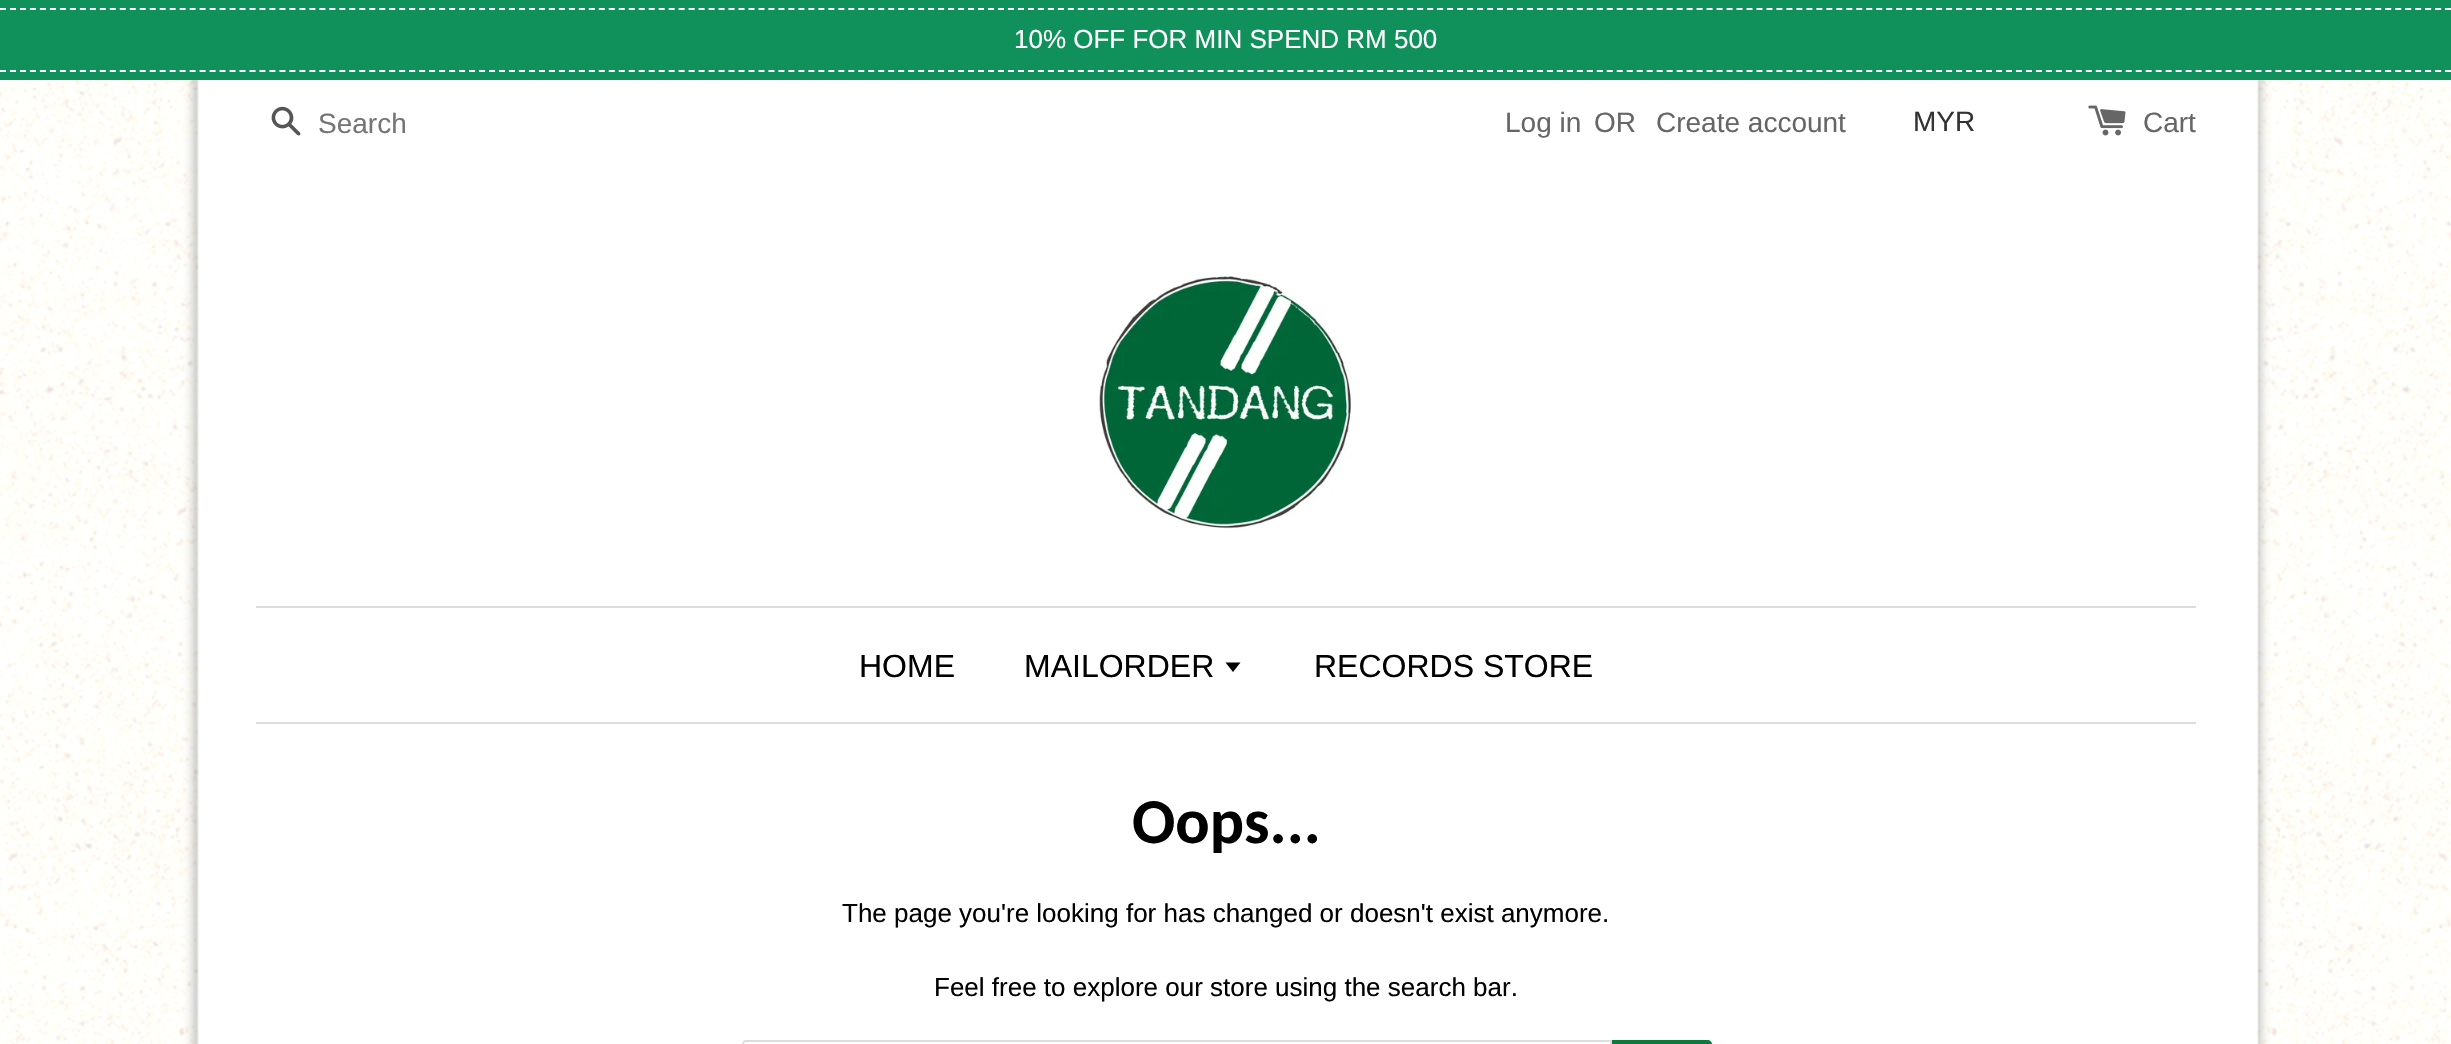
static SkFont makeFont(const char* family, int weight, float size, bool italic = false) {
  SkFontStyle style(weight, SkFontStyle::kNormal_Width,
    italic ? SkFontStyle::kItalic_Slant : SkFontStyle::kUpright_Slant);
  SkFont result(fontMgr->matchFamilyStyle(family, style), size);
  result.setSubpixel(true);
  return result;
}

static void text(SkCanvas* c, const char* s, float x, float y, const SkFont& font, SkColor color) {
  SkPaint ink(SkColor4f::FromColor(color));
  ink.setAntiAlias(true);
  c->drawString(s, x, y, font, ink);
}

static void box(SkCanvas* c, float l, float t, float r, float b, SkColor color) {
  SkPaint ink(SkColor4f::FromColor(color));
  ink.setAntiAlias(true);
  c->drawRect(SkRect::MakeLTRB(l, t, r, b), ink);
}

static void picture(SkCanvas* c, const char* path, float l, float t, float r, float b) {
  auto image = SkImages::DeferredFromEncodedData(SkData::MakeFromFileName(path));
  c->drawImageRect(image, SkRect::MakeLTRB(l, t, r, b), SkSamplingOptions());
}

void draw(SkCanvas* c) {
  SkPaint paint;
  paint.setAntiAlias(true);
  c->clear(0xffffffff);
  picture(c, "img_01.png", 0, 80, 2451, 1044);
  box(c, 0, 0, 2451, 80, 0xff10915c);
  paint.setStyle(SkPaint::kStroke_Style);
  paint.setStrokeWidth(2);
  paint.setColor(0xffffffff);
  paint.setPathEffect(SkDashPathEffect::Make({{6, 3.98f}}, 0));
  c->drawPath(SkPathBuilder().moveTo(0, 9).lineTo(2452, 9).detach(), paint);
  paint.setPathEffect(nullptr);
  paint.setPathEffect(SkDashPathEffect::Make({{6, 3.98f}}, 0));
  c->drawPath(SkPathBuilder().moveTo(0, 71).lineTo(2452, 71).detach(), paint);
  paint.setPathEffect(nullptr);
  SkFont face1 = makeFont("Liberation Sans", 400, 26);
  text(c, "10% OFF FOR MIN SPEND RM 500", 1014, 48, face1, 0xffffffff);
  picture(c, "img_02.png", 271, 106, 301, 136);
  SkFont face2 = makeFont("Liberation Sans", 400, 28);
  text(c, "Search", 318, 133, face2, 0xff757575);
  text(c, "Log in", 1505, 132, face2, 0xff666666);
  text(c, "OR", 1594, 132, face2, 0xff666666);
  text(c, "Create account", 1656, 132, face2, 0xff666666);
  text(c, "MYR", 1913, 131, face2, 0xff333333);
  picture(c, "img_03.png", 2088, 105, 2126, 136);
  text(c, "Cart", 2143, 132, face2, 0xff666666);
  picture(c, "img_04.png", 1099, 276, 1352, 529);
  box(c, 256, 606, 2196, 608, 0xffdddddd);
  box(c, 256, 722, 2196, 724, 0xffdddddd);
  SkFont face3 = makeFont("Liberation Sans", 400, 32);
  text(c, "HOME", 859, 677, face3, 0xff000000);
  text(c, "MAILORDER", 1024, 677, face3, 0xff000000);
  paint.setStyle(SkPaint::kFill_Style);
  paint.setColor(0xff000000);
  c->drawPath(SkPathBuilder().moveTo(1225.5f, 662.5f).lineTo(1233, 672).lineTo(1240.5f, 662.5f).close().detach(), paint);
  text(c, "RECORDS STORE", 1314, 677, face3, 0xff000000);
  SkFont face4 = makeFont("Carlito", 700, 64);
  text(c, "Oops...", 1132, 843, face4, 0xff000000);
  text(c, "The page you're looking for has changed or doesn't exist anymore.", 842, 922, face1, 0xff000000);
  text(c, "Feel free to explore our store using the search bar.", 934, 996, face1, 0xff000000);
  paint.setStyle(SkPaint::kStroke_Style);
  paint.setColor(0xffdddddd);
  c->drawPath(SkPathBuilder().moveTo(746, 1041).lineTo(1611, 1041).lineTo(1611, 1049).lineTo(746, 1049).cubicTo(744.5f, 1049, 743, 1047.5f, 743, 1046).lineTo(743, 1044).cubicTo(743, 1042.5f, 744.5f, 1041, 746, 1041).close().detach(), paint);
  paint.setStyle(SkPaint::kFill_Style);
  paint.setColor(0xff0a7b3d);
  c->drawPath(SkPathBuilder().moveTo(1612, 1040).lineTo(1708, 1040).cubicTo(1710, 1040, 1712, 1042, 1712, 1044).cubicTo(1712, 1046, 1710, 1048, 1708, 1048).lineTo(1612, 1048).close().detach(), paint);
}
